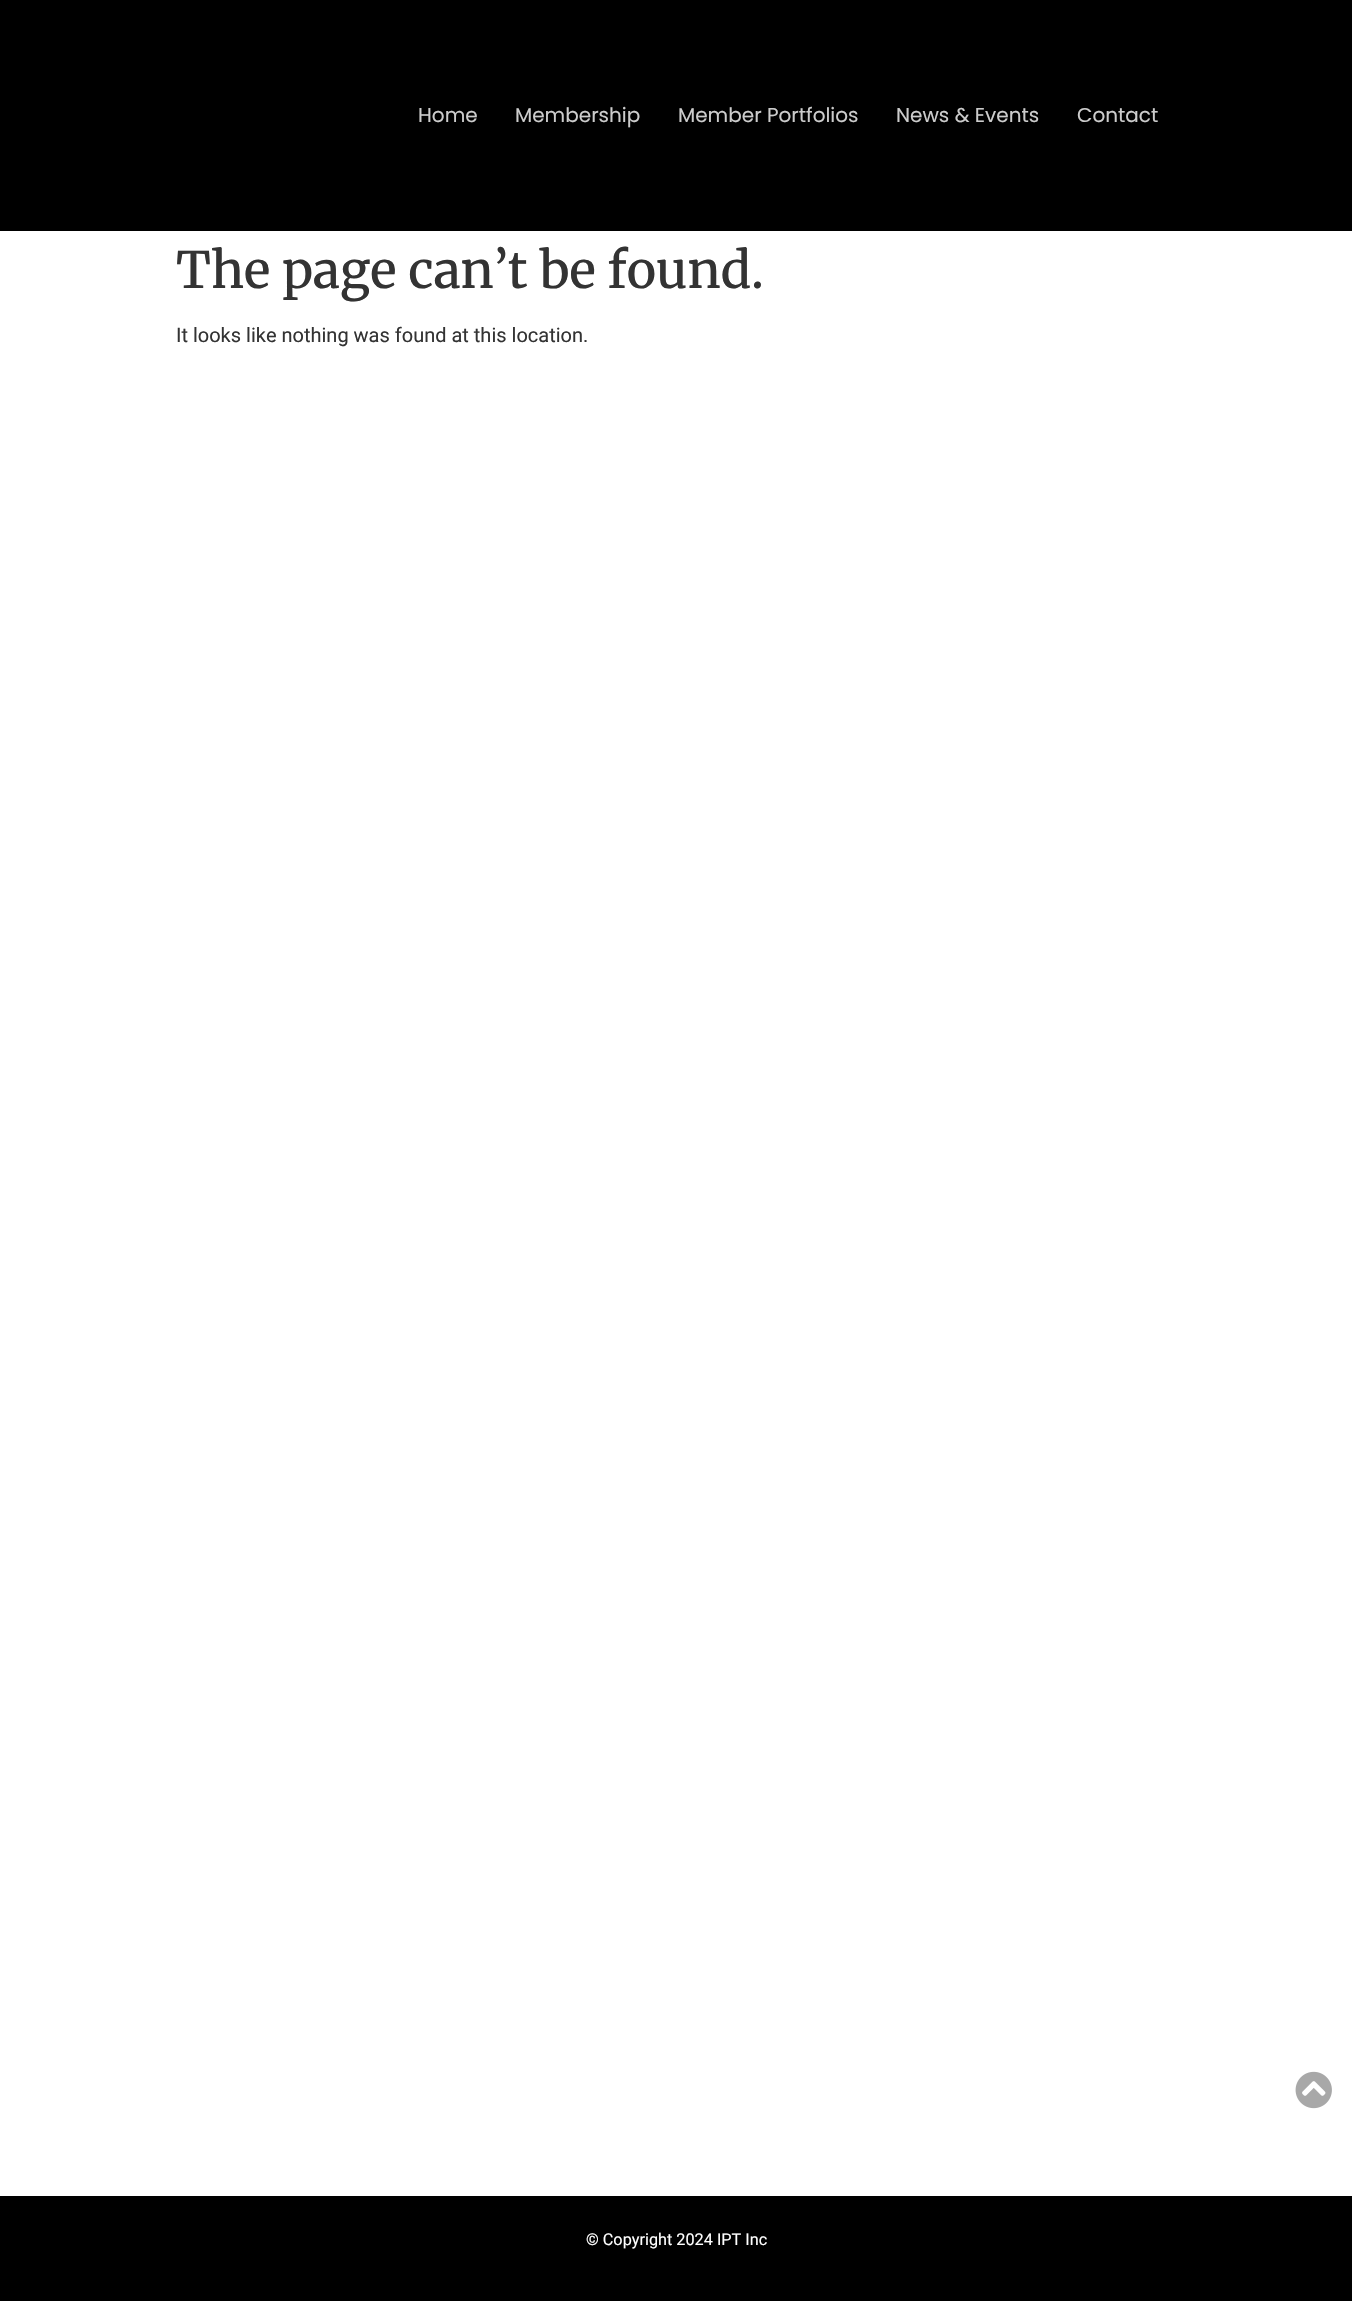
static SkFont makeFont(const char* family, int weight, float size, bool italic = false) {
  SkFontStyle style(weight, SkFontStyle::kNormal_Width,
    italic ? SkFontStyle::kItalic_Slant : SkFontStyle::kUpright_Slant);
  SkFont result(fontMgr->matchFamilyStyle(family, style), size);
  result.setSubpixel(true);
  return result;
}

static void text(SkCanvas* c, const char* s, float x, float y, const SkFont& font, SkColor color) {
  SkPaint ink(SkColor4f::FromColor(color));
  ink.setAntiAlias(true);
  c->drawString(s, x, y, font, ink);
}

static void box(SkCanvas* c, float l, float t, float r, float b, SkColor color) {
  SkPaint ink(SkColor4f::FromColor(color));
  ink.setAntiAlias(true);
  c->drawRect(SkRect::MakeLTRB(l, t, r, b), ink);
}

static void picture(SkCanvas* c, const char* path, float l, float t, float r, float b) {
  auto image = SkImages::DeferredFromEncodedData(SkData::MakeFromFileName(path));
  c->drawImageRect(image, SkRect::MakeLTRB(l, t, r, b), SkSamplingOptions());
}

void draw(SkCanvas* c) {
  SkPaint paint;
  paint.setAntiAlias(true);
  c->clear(0xffffffff);
  box(c, 0, 0, 1352, 231, 0xff000000);
  SkFont face1 = makeFont("Poppins", 400, 20);
  text(c, "Home", 418, 122, face1, 0xffcccccc);
  text(c, "Membership", 515, 122, face1, 0xffcccccc);
  text(c, "Member Portfolios", 678, 122, face1, 0xffcccccc);
  text(c, "News & Events", 896, 122, face1, 0xffcccccc);
  text(c, "Contact", 1077, 122, face1, 0xffcccccc);
  picture(c, "img_01.png", 1295, 2071, 1332, 2109);
  SkFont face2 = makeFont("Merriweather", 500, 50);
  text(c, "The page can’t be found.", 176, 288, face2, 0xff333333);
  SkFont face3 = makeFont("Roboto", 400, 20);
  text(c, "It looks like nothing was found at this location.", 176, 342, face3, 0xff333333);
  box(c, 0, 2196, 1352, 2301, 0xff000000);
  SkFont face4 = makeFont("Roboto", 400, 16.25f);
  text(c, "© Copyright 2024 IPT Inc", 586, 2245, face4, 0xffffffff);
}
